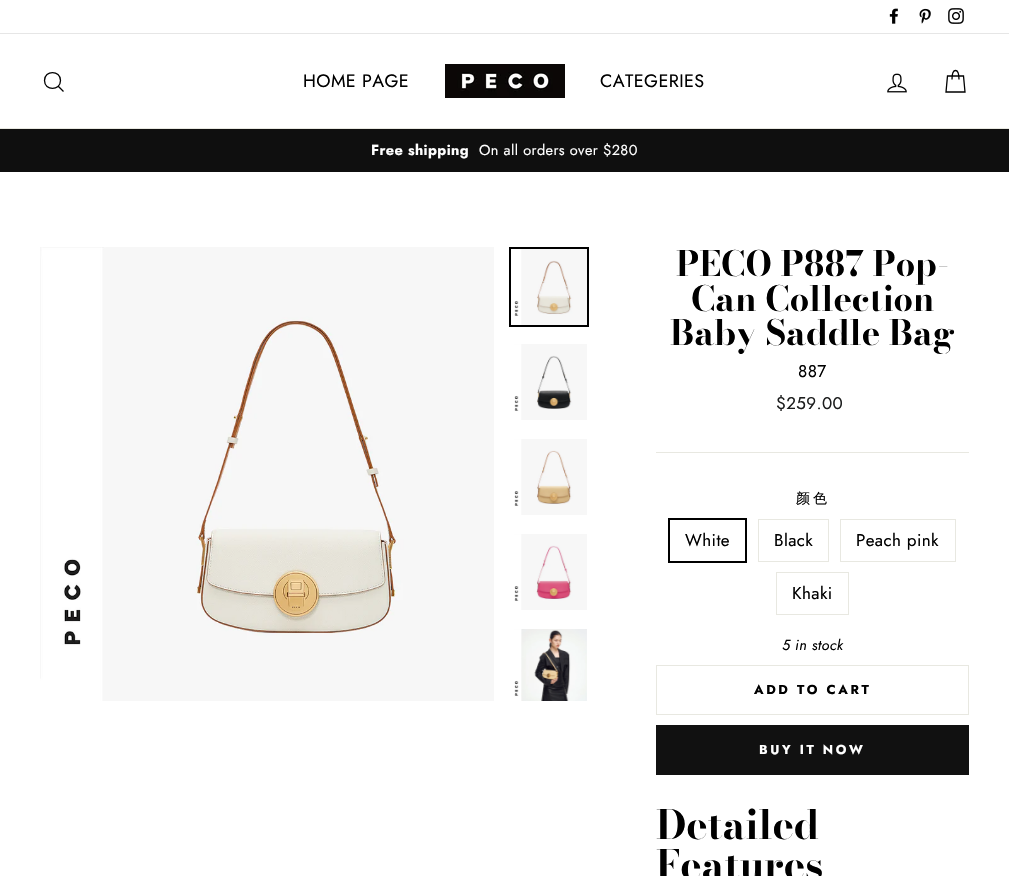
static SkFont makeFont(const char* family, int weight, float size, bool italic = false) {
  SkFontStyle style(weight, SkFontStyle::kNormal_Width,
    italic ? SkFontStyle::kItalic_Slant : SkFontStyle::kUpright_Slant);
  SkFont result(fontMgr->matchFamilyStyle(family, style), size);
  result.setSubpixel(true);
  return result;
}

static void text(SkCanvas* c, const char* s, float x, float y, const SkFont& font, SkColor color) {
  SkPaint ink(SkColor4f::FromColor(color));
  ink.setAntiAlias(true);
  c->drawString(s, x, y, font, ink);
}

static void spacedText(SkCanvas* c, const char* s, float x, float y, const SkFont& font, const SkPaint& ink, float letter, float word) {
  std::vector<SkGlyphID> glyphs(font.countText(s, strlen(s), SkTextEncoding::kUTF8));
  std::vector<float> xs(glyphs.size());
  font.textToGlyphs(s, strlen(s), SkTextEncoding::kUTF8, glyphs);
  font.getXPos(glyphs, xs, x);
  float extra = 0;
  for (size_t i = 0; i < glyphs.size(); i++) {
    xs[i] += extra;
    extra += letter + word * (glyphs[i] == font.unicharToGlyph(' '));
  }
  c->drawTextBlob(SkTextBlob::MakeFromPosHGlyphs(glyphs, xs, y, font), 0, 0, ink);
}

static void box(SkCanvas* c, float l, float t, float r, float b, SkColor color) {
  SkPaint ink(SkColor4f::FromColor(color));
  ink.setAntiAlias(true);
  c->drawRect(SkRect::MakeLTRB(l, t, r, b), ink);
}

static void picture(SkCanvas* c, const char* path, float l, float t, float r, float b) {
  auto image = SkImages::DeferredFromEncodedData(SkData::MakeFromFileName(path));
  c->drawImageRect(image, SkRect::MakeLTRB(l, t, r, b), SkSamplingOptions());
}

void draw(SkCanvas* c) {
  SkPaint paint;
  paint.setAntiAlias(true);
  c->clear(0xffffffff);
  picture(c, "img_01.png", 889, 8, 898, 24);
  picture(c, "img_02.png", 919, 8, 931, 24);
  picture(c, "img_03.png", 948, 8, 964, 24);
  box(c, 0, 33, 1009, 34, 0xffe6e6e6);
  box(c, 0, 128, 1009, 129, 0xffe8e8e1);
  paint.setStyle(SkPaint::kStroke_Style);
  paint.setStrokeWidth(1.3f);
  paint.setColor(0xff000000);
  c->drawPath(SkPathBuilder().moveTo(60.5f, 80.5f).cubicTo(60.5f, 91, 44.5f, 91, 44.5f, 80.5f).cubicTo(44.5f, 70, 60.5f, 70, 60.5f, 80.5f).close().moveTo(63.5f, 91.5f).lineTo(58.5f, 86.5f).detach(), paint);
  SkFont face1 = makeFont("Jost", 400, 18);
  paint.setStyle(SkPaint::kFill_Style);
  spacedText(c, "HOME PAGE", 303, 87, face1, paint, 0.4f, 0);
  picture(c, "img_04.png", 445, 64, 565, 98);
  spacedText(c, "CATEGERIES", 600, 87, face1, paint, 0.4f, 0);
  picture(c, "img_05.png", 887, 73, 907, 93);
  paint.setStyle(SkPaint::kStroke_Style);
  c->drawPath(SkPathBuilder().moveTo(952, 79.5f).cubicTo(952, 67.5f, 959, 67.5f, 959, 79.5f).moveTo(947.5f, 76).lineTo(963.5f, 76).lineTo(965, 92).lineTo(946, 92).close().detach(), paint);
  box(c, 0, 129, 1009, 172, 0xff0f0f0f);
  SkFont face2 = makeFont("Jost", 700, 14.5f);
  paint.setStyle(SkPaint::kFill_Style);
  paint.setColor(0xffffffff);
  spacedText(c, "Free shipping", 371, 155, face2, paint, 0.4f, 0);
  SkFont face3 = makeFont("Jost", 400, 14.5f);
  spacedText(c, "On all orders over $280", 479, 155, face3, paint, 0.4f, 0);
  picture(c, "img_06.png", 40, 247, 494, 701);
  paint.setStyle(SkPaint::kStroke_Style);
  paint.setStrokeWidth(2);
  paint.setColor(0xff000000);
  c->drawRect(SkRect::MakeLTRB(510, 248, 588, 326), paint);
  picture(c, "img_07.png", 514, 249, 587, 325);
  picture(c, "img_08.png", 514, 344, 587, 420);
  picture(c, "img_09.png", 514, 439, 587, 515);
  picture(c, "img_10.png", 514, 534, 587, 610);
  picture(c, "img_11.png", 514, 629, 587, 701);
  SkFont face4 = makeFont("Bodoni Moda", 700, 34.5f);
  text(c, "PECO P887 Pop-", 676, 276, face4, 0xff000000);
  text(c, "Can Collection", 691, 311, face4, 0xff000000);
  text(c, "Baby Saddle Bag", 670, 345, face4, 0xff000000);
  SkFont face5 = makeFont("Jost", 400, 17);
  paint.setStyle(SkPaint::kFill_Style);
  spacedText(c, "887", 798, 377, face5, paint, 0.4f, 0);
  paint.setColor(0xff1c1d1d);
  spacedText(c, "$259.00", 776, 409, face5, paint, 0.4f, 0);
  box(c, 656, 452, 969, 453, 0xffe8e8e1);
  SkFont face6 = makeFont("WenQuanYi Zen Hei", 500, 14);
  paint.setColor(0xff000000);
  spacedText(c, "颜色", 796, 503, face6, paint, 3, 0);
  paint.setStyle(SkPaint::kStroke_Style);
  c->drawRect(SkRect::MakeLTRB(669, 519, 746, 562), paint);
  paint.setStyle(SkPaint::kFill_Style);
  spacedText(c, "White", 685, 546, face5, paint, 0.4f, 0);
  paint.setStyle(SkPaint::kStroke_Style);
  paint.setStrokeWidth(1);
  paint.setColor(0xffe8e8e1);
  c->drawRect(SkRect::MakeLTRB(758.5f, 519.5f, 828.5f, 561.5f), paint);
  paint.setStyle(SkPaint::kFill_Style);
  paint.setColor(0xff000000);
  spacedText(c, "Black", 774, 546, face5, paint, 0.4f, 0);
  paint.setStyle(SkPaint::kStroke_Style);
  paint.setColor(0xffe8e8e1);
  c->drawRect(SkRect::MakeLTRB(840.5f, 519.5f, 955.5f, 561.5f), paint);
  paint.setStyle(SkPaint::kFill_Style);
  paint.setColor(0xff000000);
  spacedText(c, "Peach pink", 856, 546, face5, paint, 0.4f, 0);
  paint.setStyle(SkPaint::kStroke_Style);
  paint.setColor(0xffe8e8e1);
  c->drawRect(SkRect::MakeLTRB(776.5f, 572.5f, 848.5f, 614.5f), paint);
  paint.setStyle(SkPaint::kFill_Style);
  paint.setColor(0xff000000);
  spacedText(c, "Khaki", 792, 599, face5, paint, 0.4f, 0);
  SkFont face7 = makeFont("Jost", 400, 14.5f, true);
  spacedText(c, "5 in stock", 782, 650, face7, paint, 0.4f, 0);
  paint.setStyle(SkPaint::kStroke_Style);
  paint.setColor(0xffe8e8e1);
  c->drawRect(SkRect::MakeLTRB(656.5f, 665.5f, 968.5f, 714.5f), paint);
  SkFont face8 = makeFont("Jost", 700, 13);
  paint.setStyle(SkPaint::kFill_Style);
  paint.setColor(0xff000000);
  spacedText(c, "ADD TO CART", 754, 694, face8, paint, 2.6f, 0);
  box(c, 656, 725, 969, 775, 0xff111111);
  paint.setColor(0xffffffff);
  spacedText(c, "BUY IT NOW", 759, 754, face8, paint, 2.6f, 0);
  SkFont face9 = makeFont("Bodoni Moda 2", 700, 40);
  text(c, "Detailed", 656, 839, face9, 0xff000000);
  text(c, "Features", 656, 879, face9, 0xff000000);
}
